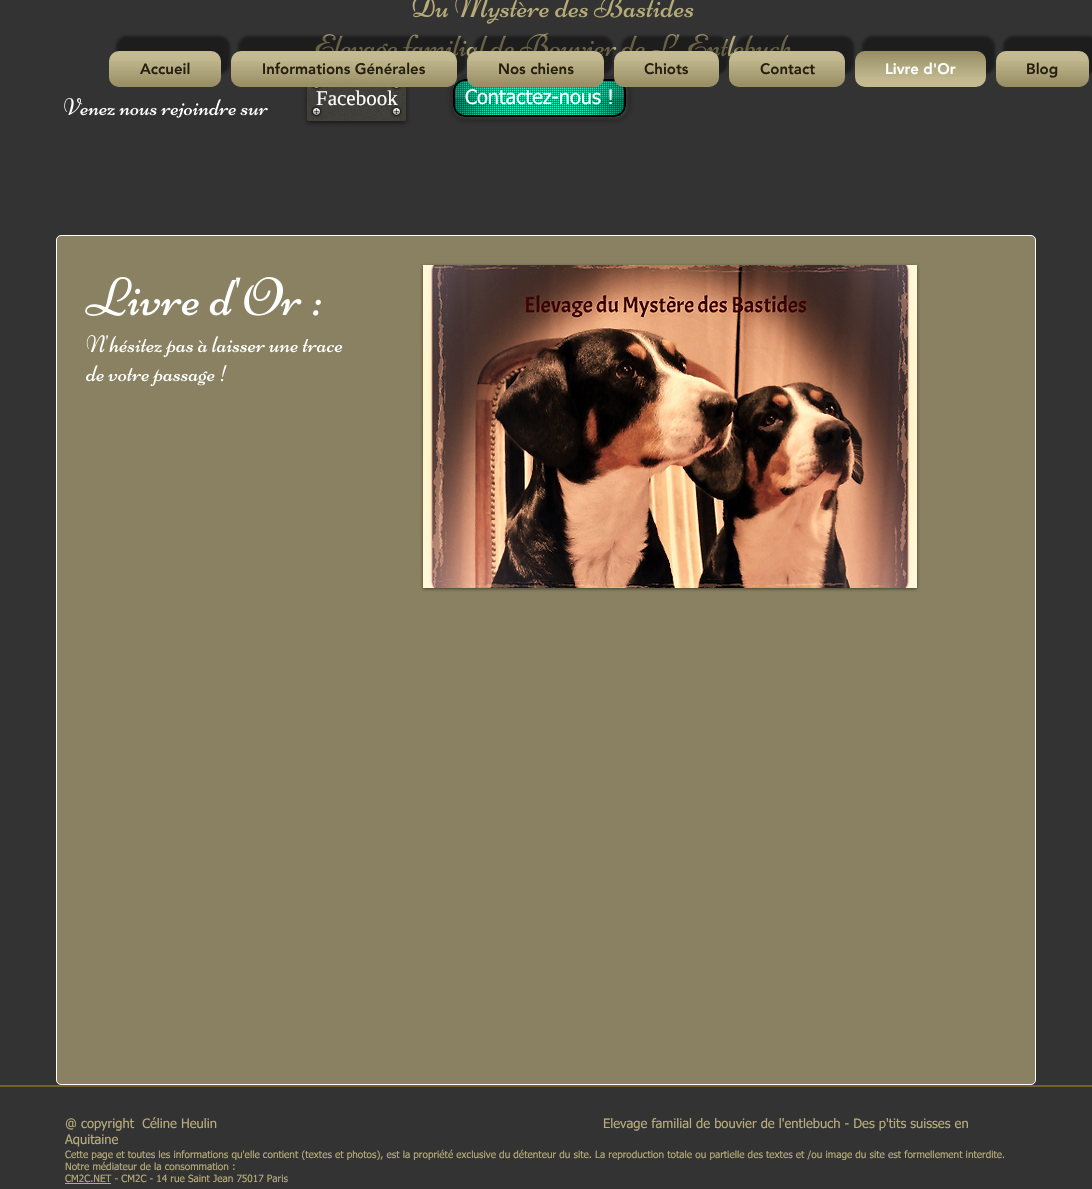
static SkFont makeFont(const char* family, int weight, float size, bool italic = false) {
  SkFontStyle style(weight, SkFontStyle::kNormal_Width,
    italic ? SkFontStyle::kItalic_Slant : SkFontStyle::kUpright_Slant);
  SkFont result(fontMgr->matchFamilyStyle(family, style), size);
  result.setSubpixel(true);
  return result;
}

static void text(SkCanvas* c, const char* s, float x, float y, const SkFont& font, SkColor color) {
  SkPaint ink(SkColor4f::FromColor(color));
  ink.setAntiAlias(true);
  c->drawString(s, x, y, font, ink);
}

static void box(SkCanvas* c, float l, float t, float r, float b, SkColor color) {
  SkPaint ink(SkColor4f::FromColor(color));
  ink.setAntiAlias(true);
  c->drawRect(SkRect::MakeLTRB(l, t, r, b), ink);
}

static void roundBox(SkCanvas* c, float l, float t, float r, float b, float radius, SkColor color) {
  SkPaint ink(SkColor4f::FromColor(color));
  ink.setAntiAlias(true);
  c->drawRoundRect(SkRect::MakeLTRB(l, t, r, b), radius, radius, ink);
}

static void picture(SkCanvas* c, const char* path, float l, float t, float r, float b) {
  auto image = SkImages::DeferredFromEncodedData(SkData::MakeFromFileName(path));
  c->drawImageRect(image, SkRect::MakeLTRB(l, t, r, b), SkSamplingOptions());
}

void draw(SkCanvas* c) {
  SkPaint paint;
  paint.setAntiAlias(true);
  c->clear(0xff333333);
  picture(c, "img_01.png", 412, 0, 694, 24);
  picture(c, "img_02.png", 315, 33, 791, 57);
  paint.setColor(0x6e000000);
  paint.setMaskFilter(SkMaskFilter::MakeBlur(kNormal_SkBlurStyle, 1.5f));
  c->drawRoundRect(SkRect::MakeLTRB(116, 36, 230, 74), 11, 11, paint);
  paint.setMaskFilter(nullptr);
  roundBox(c, 109, 51, 221, 87, 10, 0xffb7ab79);
  picture(c, "img_03.png", 109, 51, 221, 82);
  picture(c, "img_04.png", 109, 61, 221, 87);
  SkFont face1 = makeFont("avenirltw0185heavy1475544", 900, 15);
  text(c, "Accueil", 140, 74, face1, 0xff261e0d);
  paint.setColor(0x87000000);
  paint.setMaskFilter(SkMaskFilter::MakeBlur(kNormal_SkBlurStyle, 2.5f));
  c->drawRoundRect(SkRect::MakeLTRB(307, 77, 406, 123), 2, 2, paint);
  paint.setMaskFilter(nullptr);
  roundBox(c, 307, 75, 406, 121, 2, 0xff403f3a);
  paint.setColor(0x4dffffff);
  paint.setMaskFilter(SkMaskFilter::MakeBlur(kNormal_SkBlurStyle, 1.5f));
  c->drawRoundRect(SkRect::MakeLTRB(454, 80, 627, 118), 12, 12, paint);
  paint.setMaskFilter(nullptr);
  paint.setColor(0x99000000);
  paint.setMaskFilter(SkMaskFilter::MakeBlur(kNormal_SkBlurStyle, 3));
  c->drawRoundRect(SkRect::MakeLTRB(453, 79, 628, 119), 13, 13, paint);
  paint.setMaskFilter(nullptr);
  roundBox(c, 453, 79, 626, 117, 12, 0xff00ffc3);
  picture(c, "img_23.png", 453, 79, 626, 117);
  paint.setStyle(SkPaint::kStroke_Style);
  paint.setStrokeWidth(2);
  paint.setColor(0xff000000);
  c->drawRoundRect(SkRect::MakeLTRB(454, 80, 625, 116), 11, 11, paint);
  paint.setStyle(SkPaint::kFill_Style);
  paint.setColor(0x6e000000);
  paint.setMaskFilter(SkMaskFilter::MakeBlur(kNormal_SkBlurStyle, 1.5f));
  c->drawRoundRect(SkRect::MakeLTRB(238, 36, 466, 74), 11, 11, paint);
  paint.setMaskFilter(nullptr);
  picture(c, "img_24.png", 455, 81, 505, 115);
  picture(c, "img_26.png", 574, 81, 624, 115);
  SkFont face2 = makeFont("tahoma", 400, 20);
  text(c, "Contactez-nous !", 465, 104, face2, 0xffffffff);
  picture(c, "img_25.png", 455, 81, 624, 98);
  roundBox(c, 231, 51, 457, 87, 10, 0xffb7ab79);
  picture(c, "img_05.png", 231, 51, 457, 82);
  picture(c, "img_06.png", 231, 61, 457, 87);
  text(c, "Informations Générales", 262, 74, face1, 0xff261e0d);
  paint.setMaskFilter(SkMaskFilter::MakeBlur(kNormal_SkBlurStyle, 1.5f));
  c->drawRoundRect(SkRect::MakeLTRB(474, 36, 613, 74), 11, 11, paint);
  paint.setMaskFilter(nullptr);
  roundBox(c, 467, 51, 604, 87, 10, 0xffb7ab79);
  picture(c, "img_07.png", 467, 51, 604, 82);
  picture(c, "img_08.png", 467, 61, 604, 87);
  text(c, "Nos chiens", 498, 74, face1, 0xff261e0d);
  paint.setMaskFilter(SkMaskFilter::MakeBlur(kNormal_SkBlurStyle, 1.5f));
  c->drawRoundRect(SkRect::MakeLTRB(621, 36, 728, 74), 11, 11, paint);
  paint.setMaskFilter(nullptr);
  roundBox(c, 614, 51, 719, 87, 10, 0xffb7ab79);
  picture(c, "img_09.png", 614, 51, 719, 82);
  picture(c, "img_10.png", 614, 61, 719, 87);
  text(c, "Chiots", 644, 74, face1, 0xff261e0d);
  paint.setMaskFilter(SkMaskFilter::MakeBlur(kNormal_SkBlurStyle, 1.5f));
  c->drawRoundRect(SkRect::MakeLTRB(736, 36, 854, 74), 11, 11, paint);
  paint.setMaskFilter(nullptr);
  roundBox(c, 729, 51, 845, 87, 10, 0xffb7ab79);
  picture(c, "img_11.png", 729, 51, 845, 82);
  picture(c, "img_12.png", 729, 61, 845, 87);
  text(c, "Contact", 760, 74, face1, 0xff261e0d);
  paint.setMaskFilter(SkMaskFilter::MakeBlur(kNormal_SkBlurStyle, 1.5f));
  c->drawRoundRect(SkRect::MakeLTRB(862, 36, 995, 74), 11, 11, paint);
  paint.setMaskFilter(nullptr);
  roundBox(c, 855, 51, 986, 87, 10, 0xffb7ab79);
  picture(c, "img_13.png", 855, 51, 986, 77);
  picture(c, "img_14.png", 855, 55, 986, 87);
  text(c, "Livre d'Or", 885, 74, face1, 0xffffffff);
  paint.setMaskFilter(SkMaskFilter::MakeBlur(kNormal_SkBlurStyle, 1.5f));
  c->drawRoundRect(SkRect::MakeLTRB(1003, 36, 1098, 74), 11, 11, paint);
  paint.setMaskFilter(nullptr);
  roundBox(c, 996, 51, 1089, 87, 10, 0xffb7ab79);
  picture(c, "img_15.png", 996, 51, 1089, 82);
  picture(c, "img_16.png", 996, 61, 1089, 87);
  text(c, "Blog", 1026, 74, face1, 0xff261e0d);
  picture(c, "img_17.png", 64, 98, 268, 118);
  picture(c, "img_18.png", 307, 87, 405, 121);
  picture(c, "img_19.png", 310, 87, 323, 91);
  picture(c, "img_20.png", 390, 87, 403, 91);
  picture(c, "img_21.png", 310, 105, 323, 118);
  picture(c, "img_22.png", 390, 105, 403, 118);
  SkFont face3 = makeFont("Liberation Serif", 400, 21);
  text(c, "Facebook", 316, 105, face3, 0xffffffff);
  paint.setColor(0xff898161);
  c->drawRoundRect(SkRect::MakeLTRB(56.5f, 235.5f, 1035.5f, 1084.5f), 4.5f, 4.5f, paint);
  paint.setStyle(SkPaint::kStroke_Style);
  paint.setStrokeWidth(1);
  paint.setColor(0xffffffff);
  c->drawRoundRect(SkRect::MakeLTRB(56.5f, 235.5f, 1035.5f, 1084.5f), 4.5f, 4.5f, paint);
  picture(c, "img_27.png", 85, 277, 321, 316);
  picture(c, "img_28.png", 86, 335, 343, 358);
  picture(c, "img_29.png", 86, 365, 227, 387);
  paint.setStyle(SkPaint::kFill_Style);
  paint.setColor(0x80000000);
  paint.setMaskFilter(SkMaskFilter::MakeBlur(kNormal_SkBlurStyle, 1.5f));
  c->drawRect(SkRect::MakeLTRB(423, 266, 917, 589), paint);
  paint.setMaskFilter(nullptr);
  picture(c, "img_30.png", 423, 265, 917, 588);
  box(c, 0, 1085, 1092, 1087, 0xff706230);
  SkFont face4 = makeFont("tahoma", 400, 13);
  text(c, "@ copyright  Céline Heulin                                                                                               Elevage familial de bouvier de l'entlebuch - Des p'tits suisses en", 65, 1128, face4, 0xffb7ab79);
  text(c, "Aquitaine", 65, 1144, face4, 0xffb7ab79);
  SkFont face5 = makeFont("tahoma", 400, 10);
  text(c, "Cette page et toutes les informations qu'elle contient (textes et photos), est la propriété exclusive du détenteur du site. La reproduction totale ou partielle des textes et /ou image du site est formellement interdite.", 65, 1158, face5, 0xffb7ab79);
  text(c, "Notre médiateur de la consommation :", 65, 1170, face5, 0xffb7ab79);
  text(c, "CM2C.NET - CM2C - 14 rue Saint Jean 75017 Paris", 65, 1182, face5, 0xffb7ab79);
  box(c, 65, 1183, 111, 1184, 0xffb7ab79);
}
